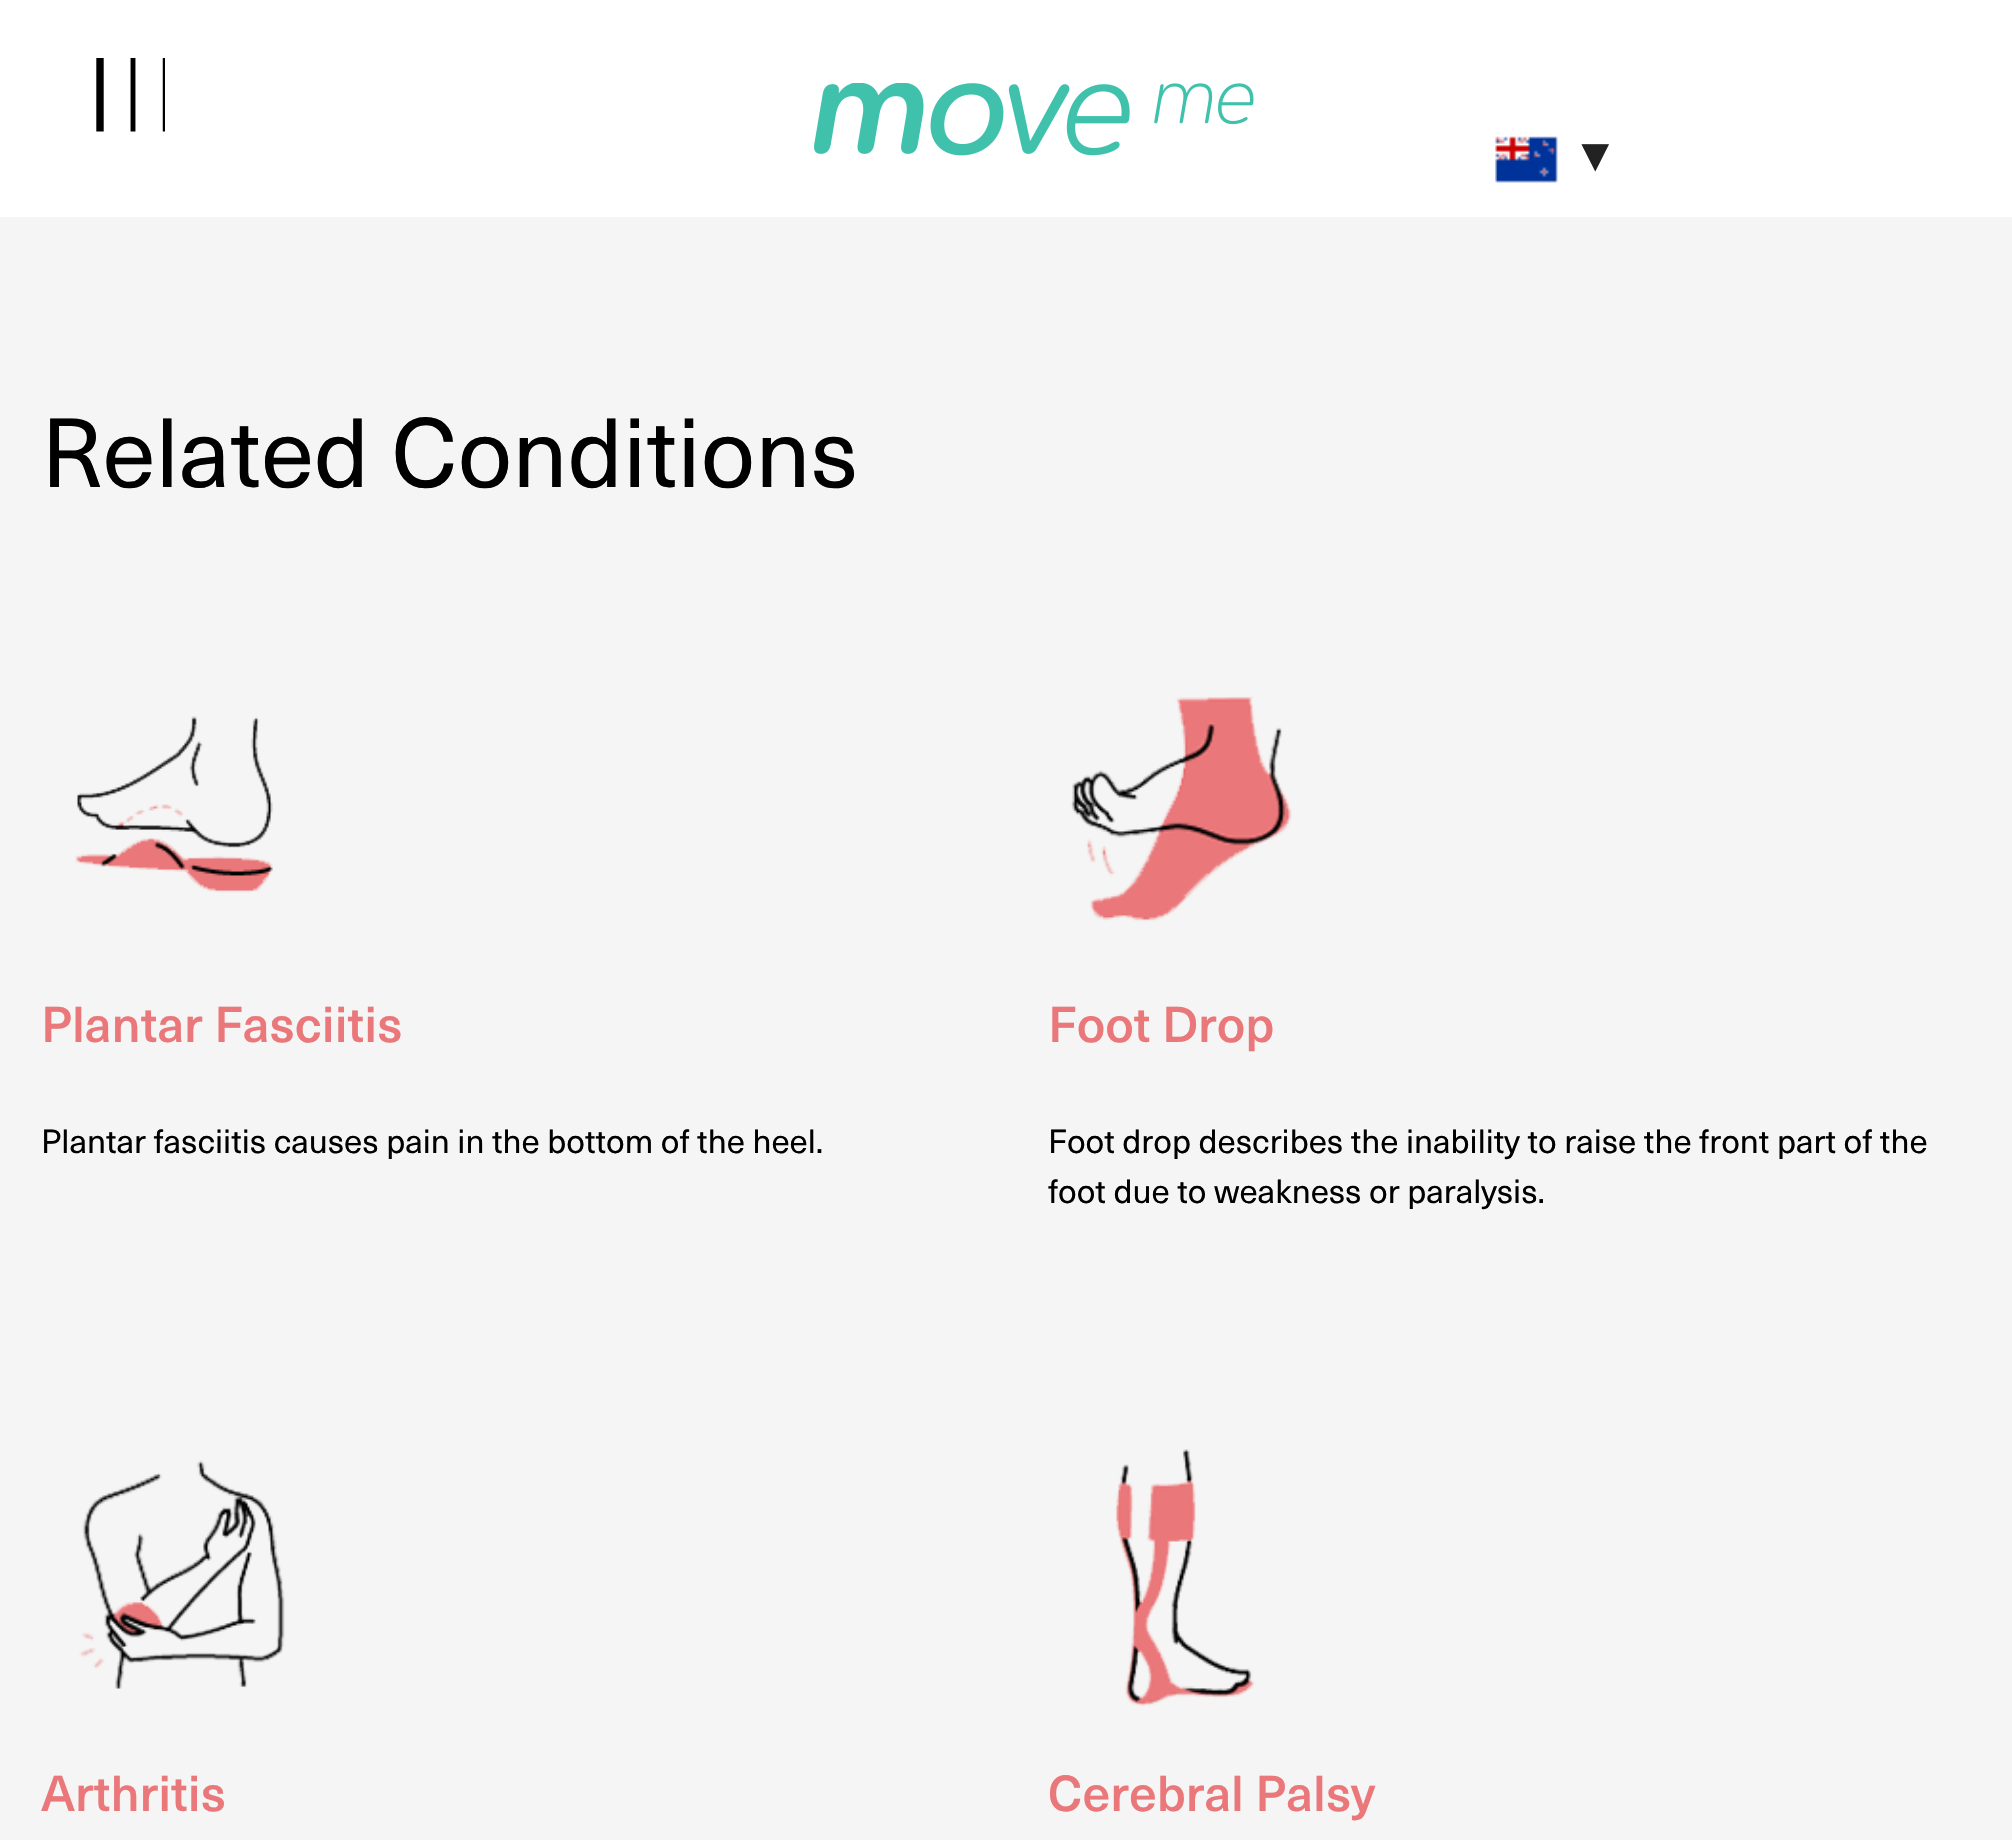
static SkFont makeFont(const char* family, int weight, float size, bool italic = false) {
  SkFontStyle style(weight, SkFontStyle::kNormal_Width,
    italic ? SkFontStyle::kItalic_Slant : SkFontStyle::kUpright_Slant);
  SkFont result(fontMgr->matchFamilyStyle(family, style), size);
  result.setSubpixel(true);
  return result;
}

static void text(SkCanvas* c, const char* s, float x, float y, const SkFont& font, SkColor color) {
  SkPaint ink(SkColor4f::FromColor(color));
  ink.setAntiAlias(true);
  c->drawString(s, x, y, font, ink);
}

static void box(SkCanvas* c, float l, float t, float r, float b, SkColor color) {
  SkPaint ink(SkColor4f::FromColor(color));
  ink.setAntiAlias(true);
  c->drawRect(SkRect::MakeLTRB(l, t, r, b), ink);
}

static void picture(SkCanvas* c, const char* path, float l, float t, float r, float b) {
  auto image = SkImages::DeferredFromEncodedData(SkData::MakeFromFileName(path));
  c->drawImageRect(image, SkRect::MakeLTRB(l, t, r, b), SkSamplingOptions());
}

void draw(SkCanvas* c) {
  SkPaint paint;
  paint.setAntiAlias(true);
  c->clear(0xffffffff);
  paint.setStyle(SkPaint::kStroke_Style);
  paint.setStrokeWidth(7.4f);
  paint.setColor(0xff000000);
  c->drawPath(SkPathBuilder().moveTo(100, 58).lineTo(100, 131.5f).detach(), paint);
  paint.setStrokeWidth(4.9f);
  c->drawPath(SkPathBuilder().moveTo(133, 58).lineTo(133, 131.5f).detach(), paint);
  c->save();
  c->clipRect(SkRect::MakeLTRB(96, 58, 165, 132));
  paint.setStrokeWidth(2.5f);
  c->drawPath(SkPathBuilder().moveTo(164, 58).lineTo(164, 131.5f).detach(), paint);
  c->restore();
  picture(c, "img_01.png", 814, 83, 1254, 156);
  picture(c, "img_02.png", 1495, 136, 1558, 183);
  SkFont face1 = makeFont("Liberation Serif", 400, 47);
  text(c, "▼", 1572, 171, face1, 0xff222222);
  box(c, 0, 217, 2012, 1840, 0xfff4f5f4);
  SkFont face2 = makeFont("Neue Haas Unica", 400, 96.25f);
  text(c, "Related Conditions", 41, 487, face2, 0xff000000);
  picture(c, "img_03.png", 75, 716, 273, 893);
  SkFont face3 = makeFont("Neue Haas Unica", 500, 49.5f);
  text(c, "Plantar Fasciitis", 41, 1042, face3, 0xffea777a);
  SkFont face4 = makeFont("Neue Haas Unica", 400, 33);
  text(c, "Plantar fasciitis causes pain in the bottom of the heel.", 41, 1153, face4, 0xff000000);
  picture(c, "img_04.png", 1070, 696, 1292, 922);
  text(c, "Foot Drop", 1048, 1042, face3, 0xffea777a);
  text(c, "Foot drop describes the inability to raise the front part of the", 1048, 1153, face4, 0xff000000);
  text(c, "foot due to weakness or paralysis.", 1048, 1203, face4, 0xff000000);
  picture(c, "img_05.png", 79, 1460, 285, 1689);
  text(c, "Arthritis", 41, 1811, face3, 0xffea777a);
  picture(c, "img_06.png", 1116, 1449, 1255, 1706);
  text(c, "Cerebral Palsy", 1048, 1811, face3, 0xffea777a);
}
